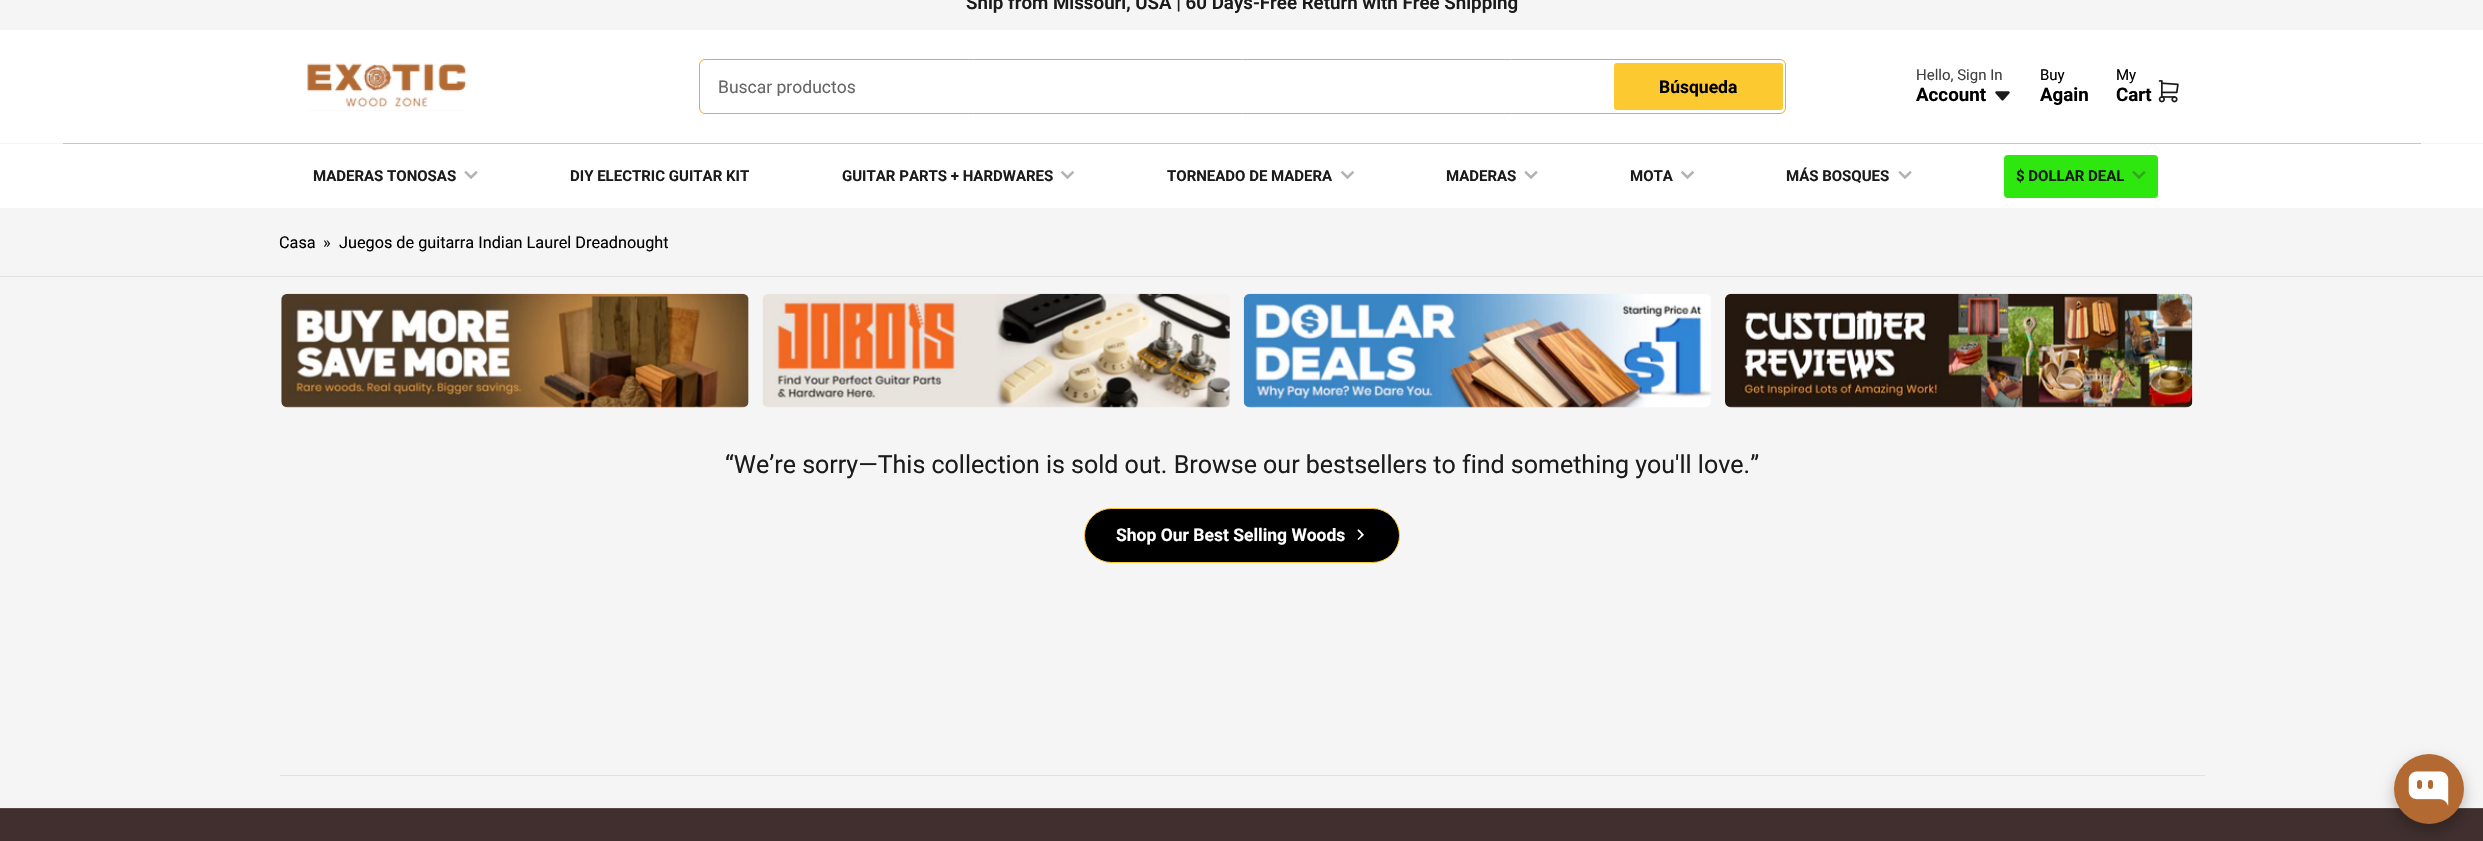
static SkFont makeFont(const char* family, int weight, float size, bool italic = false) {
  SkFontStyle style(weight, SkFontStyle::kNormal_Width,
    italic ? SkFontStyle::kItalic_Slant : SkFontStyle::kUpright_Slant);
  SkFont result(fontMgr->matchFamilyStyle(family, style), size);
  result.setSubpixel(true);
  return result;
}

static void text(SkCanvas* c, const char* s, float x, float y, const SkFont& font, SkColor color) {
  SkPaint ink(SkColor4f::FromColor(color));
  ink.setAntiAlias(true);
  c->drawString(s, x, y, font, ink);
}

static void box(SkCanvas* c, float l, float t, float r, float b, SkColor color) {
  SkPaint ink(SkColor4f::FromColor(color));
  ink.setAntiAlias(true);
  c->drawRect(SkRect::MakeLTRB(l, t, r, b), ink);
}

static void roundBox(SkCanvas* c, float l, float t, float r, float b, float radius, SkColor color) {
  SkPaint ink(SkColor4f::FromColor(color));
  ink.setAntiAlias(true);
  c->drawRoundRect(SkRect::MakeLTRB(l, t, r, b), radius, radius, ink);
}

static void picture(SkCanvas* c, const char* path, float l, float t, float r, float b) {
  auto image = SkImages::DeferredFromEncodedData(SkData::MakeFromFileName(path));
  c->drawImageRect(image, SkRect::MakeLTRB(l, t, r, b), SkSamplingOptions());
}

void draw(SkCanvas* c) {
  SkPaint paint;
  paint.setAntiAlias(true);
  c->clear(0xfff6f5f6);
  SkFont face1 = makeFont("Roboto", 600, 18.75f);
  text(c, "Ship from Missouri, USA | 60 Days-Free Return with Free Shipping", 966, 9, face1, 0xff1b1b1b);
  box(c, 0, 30, 2483, 143, 0xffffffff);
  picture(c, "img_01.png", 307, 63, 467, 111);
  paint.setStyle(SkPaint::kStroke_Style);
  paint.setStrokeWidth(1);
  paint.setColor(0xfff5a923);
  c->drawRoundRect(SkRect::MakeLTRB(699.5f, 59.5f, 1785.5f, 113.5f), 5.5f, 5.5f, paint);
  c->save();
  c->clipRect(SkRect::MakeLTRB(719, 76, 1766, 96));
  SkFont face2 = makeFont("Roboto", 400, 17.5f);
  text(c, "Buscar productos", 718, 93, face2, 0xff666666);
  c->restore();
  paint.setStyle(SkPaint::kFill_Style);
  paint.setColor(0xfffcc931);
  c->drawRoundRect(SkRect::MakeLTRB(1614.5f, 63.5f, 1782.5f, 109.5f), 2, 2, paint);
  paint.setStyle(SkPaint::kStroke_Style);
  c->drawRoundRect(SkRect::MakeLTRB(1614.5f, 63.5f, 1782.5f, 109.5f), 2, 2, paint);
  SkFont face3 = makeFont("Roboto", 700, 17.5f);
  text(c, "Búsqueda", 1659, 93, face3, 0xff000000);
  SkFont face4 = makeFont("Roboto", 400, 15);
  text(c, "Hello, Sign In", 1916, 80, face4, 0xff404040);
  SkFont face5 = makeFont("Roboto", 700, 18.75f);
  text(c, "Account", 1916, 101, face5, 0xff000000);
  picture(c, "img_02.png", 1995, 91, 2010, 101);
  text(c, "Buy", 2040, 80, face4, 0xff000000);
  text(c, "Again", 2040, 101, face5, 0xff000000);
  text(c, "My", 2116, 80, face4, 0xff000000);
  text(c, "Cart", 2116, 101, face5, 0xff000000);
  picture(c, "img_03.png", 2158, 80, 2179, 103);
  box(c, 63, 143, 2421, 144, 0xfffcc931);
  box(c, 0, 144, 2483, 208, 0xffffffff);
  SkFont face6 = makeFont("Roboto", 700, 15);
  text(c, "MADERAS TONOSAS", 313, 181, face6, 0xff1b1b1b);
  paint.setStrokeWidth(2.5f);
  paint.setStrokeCap(SkPaint::kSquare_Cap);
  paint.setColor(0xffb3b3b3);
  c->drawPath(SkPathBuilder().moveTo(476, 172.5f).lineTo(471, 177.5f).lineTo(466, 172.5f).detach(), paint);
  text(c, "DIY ELECTRIC GUITAR KIT", 570, 181, face6, 0xff1b1b1b);
  text(c, "GUITAR PARTS + HARDWARES", 842, 181, face6, 0xff1b1b1b);
  c->drawPath(SkPathBuilder().moveTo(1072.5f, 172.5f).lineTo(1067.5f, 177.5f).lineTo(1062.5f, 172.5f).detach(), paint);
  text(c, "TORNEADO DE MADERA", 1167, 181, face6, 0xff1b1b1b);
  c->drawPath(SkPathBuilder().moveTo(1352.5f, 172.5f).lineTo(1347.5f, 177.5f).lineTo(1342.5f, 172.5f).detach(), paint);
  text(c, "MADERAS", 1446, 181, face6, 0xff1b1b1b);
  c->drawPath(SkPathBuilder().moveTo(1536, 172.5f).lineTo(1531, 177.5f).lineTo(1526, 172.5f).detach(), paint);
  text(c, "MOTA", 1630, 181, face6, 0xff1b1b1b);
  c->drawPath(SkPathBuilder().moveTo(1692.5f, 172.5f).lineTo(1687.5f, 177.5f).lineTo(1682.5f, 172.5f).detach(), paint);
  text(c, "MÁS BOSQUES", 1786, 181, face6, 0xff1b1b1b);
  c->drawPath(SkPathBuilder().moveTo(1910, 172.5f).lineTo(1905, 177.5f).lineTo(1900, 172.5f).detach(), paint);
  roundBox(c, 2004, 155, 2158, 198, 4, 0xff2ee70e);
  text(c, "$ DOLLAR DEAL", 2016, 181, face6, 0xff1b1b1b);
  paint.setColor(0xff35a422);
  c->drawPath(SkPathBuilder().moveTo(2144, 172.5f).lineTo(2139, 177.5f).lineTo(2134, 172.5f).detach(), paint);
  box(c, 0, 276, 2483, 277, 0xffe1e1e1);
  SkFont face7 = makeFont("Roboto", 400, 16.25f);
  text(c, "Casa", 279, 248, face7, 0xff000000);
  text(c, "»", 323, 248, face7, 0xff1b1b1b);
  text(c, "Juegos de guitarra Indian Laurel Dreadnought", 339, 248, face7, 0xff000000);
  picture(c, "img_04.png", 281, 293, 749, 408);
  picture(c, "img_05.png", 762, 293, 1230, 408);
  picture(c, "img_06.png", 1243, 293, 1711, 408);
  picture(c, "img_07.png", 1725, 293, 2193, 408);
  SkFont face8 = makeFont("Roboto", 400, 25);
  text(c, "“We’re sorry—This collection is sold out. Browse our bestsellers to find something you'll love.”", 725, 473, face8, 0xff1b1b1b);
  paint.setStyle(SkPaint::kFill_Style);
  paint.setColor(0xff000000);
  c->drawRoundRect(SkRect::MakeLTRB(1084.5f, 508.5f, 1399.5f, 562.5f), 27, 27, paint);
  paint.setStyle(SkPaint::kStroke_Style);
  paint.setStrokeWidth(1);
  paint.setStrokeCap(SkPaint::kButt_Cap);
  paint.setColor(0xfffcc931);
  c->drawRoundRect(SkRect::MakeLTRB(1084.5f, 508.5f, 1399.5f, 562.5f), 27, 27, paint);
  text(c, "Shop Our Best Selling Woods", 1116, 541, face3, 0xffffffff);
  paint.setStyle(SkPaint::kFill_Style);
  paint.setColor(0xffffffff);
  c->drawPath(SkPathBuilder().moveTo(1358, 538.5f).lineTo(1360, 536.5f).cubicTo(1360.5f, 535.5f, 1362, 533.5f, 1363, 534).cubicTo(1365.5f, 534.5f, 1360.5f, 538, 1360.5f, 538).lineTo(1358.5f, 540).cubicTo(1358, 540, 1357, 539, 1358, 538.5f).close().detach(), paint);
  c->drawPath(SkPathBuilder().moveTo(1362, 535.5f).lineTo(1360, 533).cubicTo(1359.5f, 532.5f, 1357.5f, 531, 1357.5f, 530).cubicTo(1358, 527.5f, 1361.5f, 532.5f, 1362, 532.5f).lineTo(1363.5f, 534.5f).cubicTo(1364, 535, 1362.5f, 536, 1362, 535.5f).close().detach(), paint);
  box(c, 280, 775, 2205, 776, 0xffe1e1e1);
  box(c, 0, 809, 2483, 841, 0xff402f2e);
  box(c, 0, 808, 2483, 809, 0xff594a49);
  paint.setColor(0x40000000);
  paint.setMaskFilter(SkMaskFilter::MakeBlur(kNormal_SkBlurStyle, 7.5f));
  c->drawRoundRect(SkRect::MakeLTRB(2394, 761, 2464, 831), 35, 35, paint);
  paint.setMaskFilter(nullptr);
  paint.setColor(0xffb36a32);
  c->drawCircle(2429, 789, 35, paint);
  picture(c, "img_08.png", 2408, 771, 2449, 806);
}
